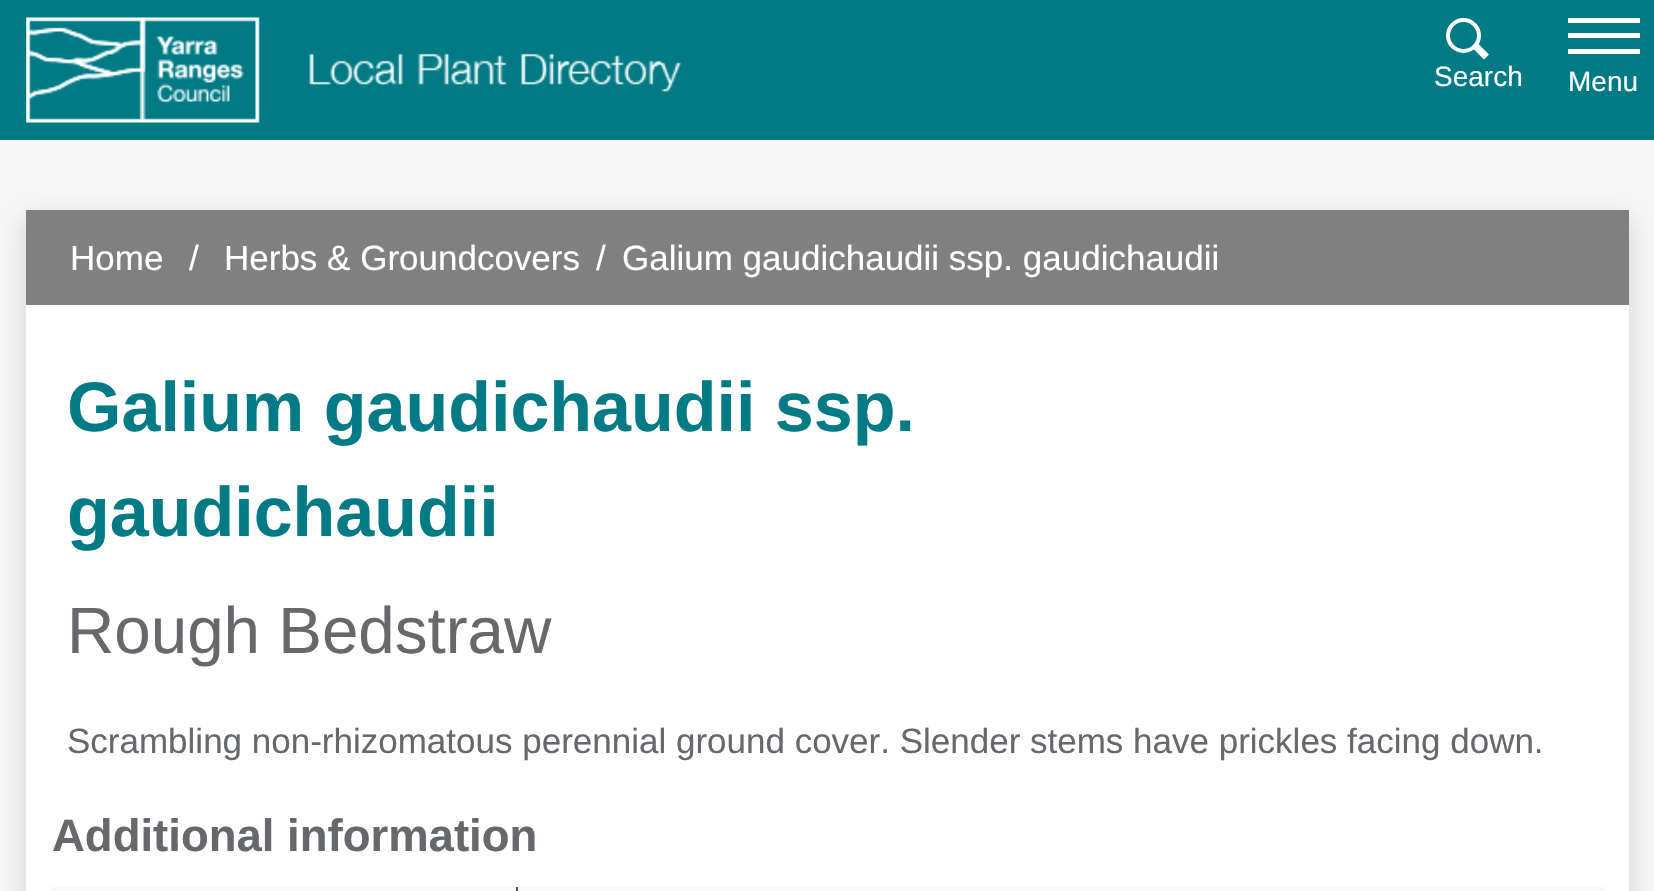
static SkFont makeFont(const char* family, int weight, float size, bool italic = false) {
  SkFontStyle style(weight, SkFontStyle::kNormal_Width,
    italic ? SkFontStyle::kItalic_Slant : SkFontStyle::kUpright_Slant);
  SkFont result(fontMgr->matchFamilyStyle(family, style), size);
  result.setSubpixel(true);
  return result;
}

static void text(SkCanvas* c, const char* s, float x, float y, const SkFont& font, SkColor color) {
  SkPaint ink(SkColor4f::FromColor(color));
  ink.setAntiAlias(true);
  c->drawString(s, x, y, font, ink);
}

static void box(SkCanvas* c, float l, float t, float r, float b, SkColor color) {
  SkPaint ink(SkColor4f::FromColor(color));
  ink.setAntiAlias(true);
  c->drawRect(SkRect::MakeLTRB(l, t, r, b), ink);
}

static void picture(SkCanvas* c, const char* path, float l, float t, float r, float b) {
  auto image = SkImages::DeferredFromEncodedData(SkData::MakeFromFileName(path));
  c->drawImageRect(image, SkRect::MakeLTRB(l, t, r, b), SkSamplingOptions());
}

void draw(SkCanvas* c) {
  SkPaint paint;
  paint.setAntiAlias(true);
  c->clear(0xfff7f7f7);
  box(c, 0, 0, 1654, 140, 0xff007b85);
  picture(c, "img_01.png", 26, 17, 682, 123);
  paint.setStyle(SkPaint::kStroke_Style);
  paint.setStrokeWidth(4);
  paint.setColor(0xffffffff);
  c->drawCircle(1463.5f, 35.5f, 15.5f, paint);
  paint.setStyle(SkPaint::kFill_Style);
  c->drawPath(SkPathBuilder().moveTo(1476.5f, 42).lineTo(1489, 54.5f).lineTo(1484, 59.5f).lineTo(1471.5f, 47).close().detach(), paint);
  SkFont face1 = makeFont("Liberation Sans", 400, 28);
  text(c, "Search", 1434, 86, face1, 0xffffffff);
  box(c, 1568, 33, 1640, 38, 0xffffffff);
  box(c, 1568, 18, 1640, 23, 0xffffffff);
  box(c, 1568, 49, 1640, 54, 0xffffffff);
  text(c, "Menu", 1568, 91, face1, 0xffffffff);
  paint.setColor(0x26000000);
  paint.setMaskFilter(SkMaskFilter::MakeBlur(kNormal_SkBlurStyle, 13));
  c->drawRect(SkRect::MakeLTRB(26, 219, 1629, 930), paint);
  paint.setMaskFilter(nullptr);
  box(c, 26, 210, 1629, 305, 0xff808080);
  SkFont face2 = makeFont("Liberation Sans", 400, 35);
  text(c, "Home", 70, 270, face2, 0xffffffff);
  text(c, "/", 189, 270, face2, 0xffffffff);
  text(c, "Herbs & Groundcovers", 224, 270, face2, 0xffffffff);
  text(c, "/", 596, 270, face2, 0xffffffff);
  text(c, "Galium gaudichaudii ssp. gaudichaudii", 622, 270, face2, 0xffffffff);
  box(c, 26, 305, 1629, 891, 0xffffffff);
  SkFont face3 = makeFont("Liberation Sans", 700, 70);
  text(c, "Galium gaudichaudii ssp.", 67, 431, face3, 0xff007b85);
  text(c, "gaudichaudii", 67, 536, face3, 0xff007b85);
  SkFont face4 = makeFont("Liberation Sans", 400, 65.5f);
  text(c, "Rough Bedstraw", 67, 653, face4, 0xff65696c);
  text(c, "Scrambling non-rhizomatous perennial ground cover. Slender stems have prickles facing down.", 67, 753, face2, 0xff65696c);
  SkFont face5 = makeFont("Liberation Sans", 700, 45.5f);
  text(c, "Additional information", 52, 851, face5, 0xff65696c);
  box(c, 51, 887, 1605, 891, 0xfff8f8f8);
  box(c, 516, 887, 518, 891, 0xff505050);
}
